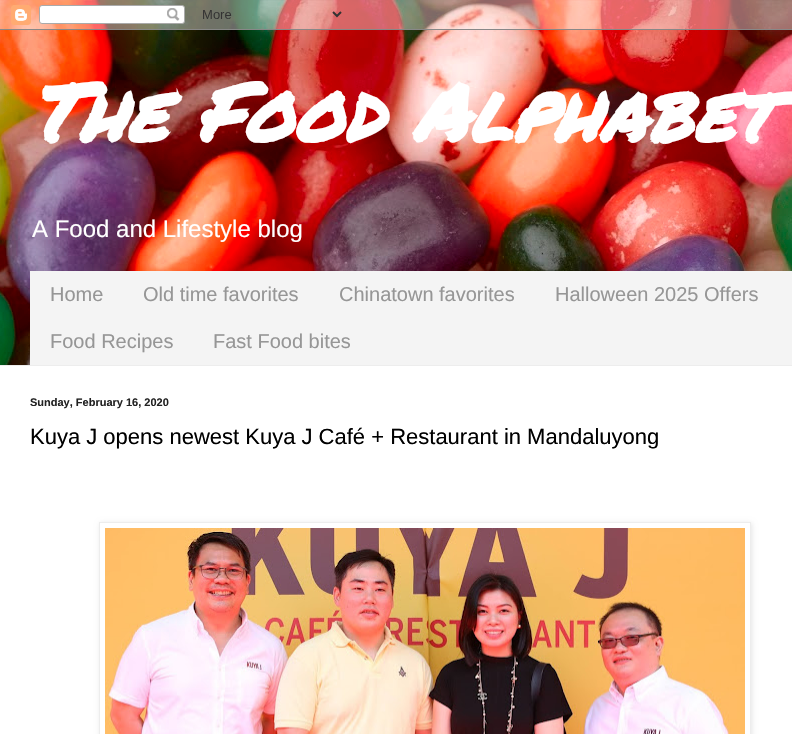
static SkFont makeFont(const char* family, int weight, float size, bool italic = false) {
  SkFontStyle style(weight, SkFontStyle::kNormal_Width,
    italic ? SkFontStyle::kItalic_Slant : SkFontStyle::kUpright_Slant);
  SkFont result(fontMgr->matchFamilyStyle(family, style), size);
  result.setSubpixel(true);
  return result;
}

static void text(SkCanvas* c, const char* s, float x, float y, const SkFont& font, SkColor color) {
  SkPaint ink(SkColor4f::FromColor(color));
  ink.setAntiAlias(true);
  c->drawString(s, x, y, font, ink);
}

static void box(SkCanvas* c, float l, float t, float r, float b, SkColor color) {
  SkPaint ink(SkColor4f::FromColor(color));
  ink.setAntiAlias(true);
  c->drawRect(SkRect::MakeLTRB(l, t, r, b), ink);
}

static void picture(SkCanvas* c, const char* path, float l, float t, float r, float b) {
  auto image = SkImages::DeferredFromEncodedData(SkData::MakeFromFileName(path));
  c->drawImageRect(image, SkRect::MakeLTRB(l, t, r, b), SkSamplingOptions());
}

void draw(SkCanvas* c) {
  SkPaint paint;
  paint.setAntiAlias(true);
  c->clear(0xffffffff);
  picture(c, "img_01.png", 0, 0, 792, 365);
  picture(c, "img_02.png", 0, 0, 792, 30);
  SkFont face1 = makeFont("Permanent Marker", 700, 80, true);
  text(c, "The Food Alphabet", 30, 142, face1, 0xffffffff);
  SkFont face2 = makeFont("Liberation Sans", 400, 24);
  text(c, "A Food and Lifestyle blog", 32, 237, face2, 0xffffffff);
  box(c, 30, 271, 792, 365, 0xfff4f4f4);
  SkFont face3 = makeFont("Liberation Sans", 400, 20);
  text(c, "Home", 50, 301, face3, 0xff969696);
  text(c, "Old time favorites", 143, 301, face3, 0xff969696);
  text(c, "Chinatown favorites", 339, 301, face3, 0xff969696);
  text(c, "Halloween 2025 Offers", 555, 301, face3, 0xff969696);
  text(c, "Food Recipes", 50, 348, face3, 0xff969696);
  text(c, "Fast Food bites", 213, 348, face3, 0xff969696);
  box(c, 0, 365, 792, 366, 0xffededed);
  SkFont face4 = makeFont("Liberation Sans", 700, 11);
  text(c, "Sunday, February 16, 2020", 30, 406, face4, 0xff222222);
  SkFont face5 = makeFont("Liberation Sans", 400, 22);
  text(c, "Kuya J opens newest Kuya J Café + Restaurant in Mandaluyong", 30, 444, face5, 0xff000000);
  c->save();
  c->clipPath(SkPathBuilder(SkPathFillType::kEvenOdd).moveTo(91, 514).lineTo(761, 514).lineTo(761, 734).lineTo(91, 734).close().moveTo(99, 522).lineTo(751, 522).lineTo(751, 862).lineTo(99, 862).close().detach(), true);
  paint.setColor(0x1a000000);
  paint.setMaskFilter(SkMaskFilter::MakeBlur(kNormal_SkBlurStyle, 2.5f));
  c->drawRect(SkRect::MakeLTRB(100, 523, 752, 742), paint);
  paint.setMaskFilter(nullptr);
  c->restore();
  paint.setStyle(SkPaint::kStroke_Style);
  paint.setStrokeWidth(1);
  paint.setColor(0xffededed);
  c->drawRect(SkRect::MakeLTRB(99.5f, 522.5f, 750.5f, 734.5f), paint);
  picture(c, "img_03.png", 105, 528, 745, 734);
}
